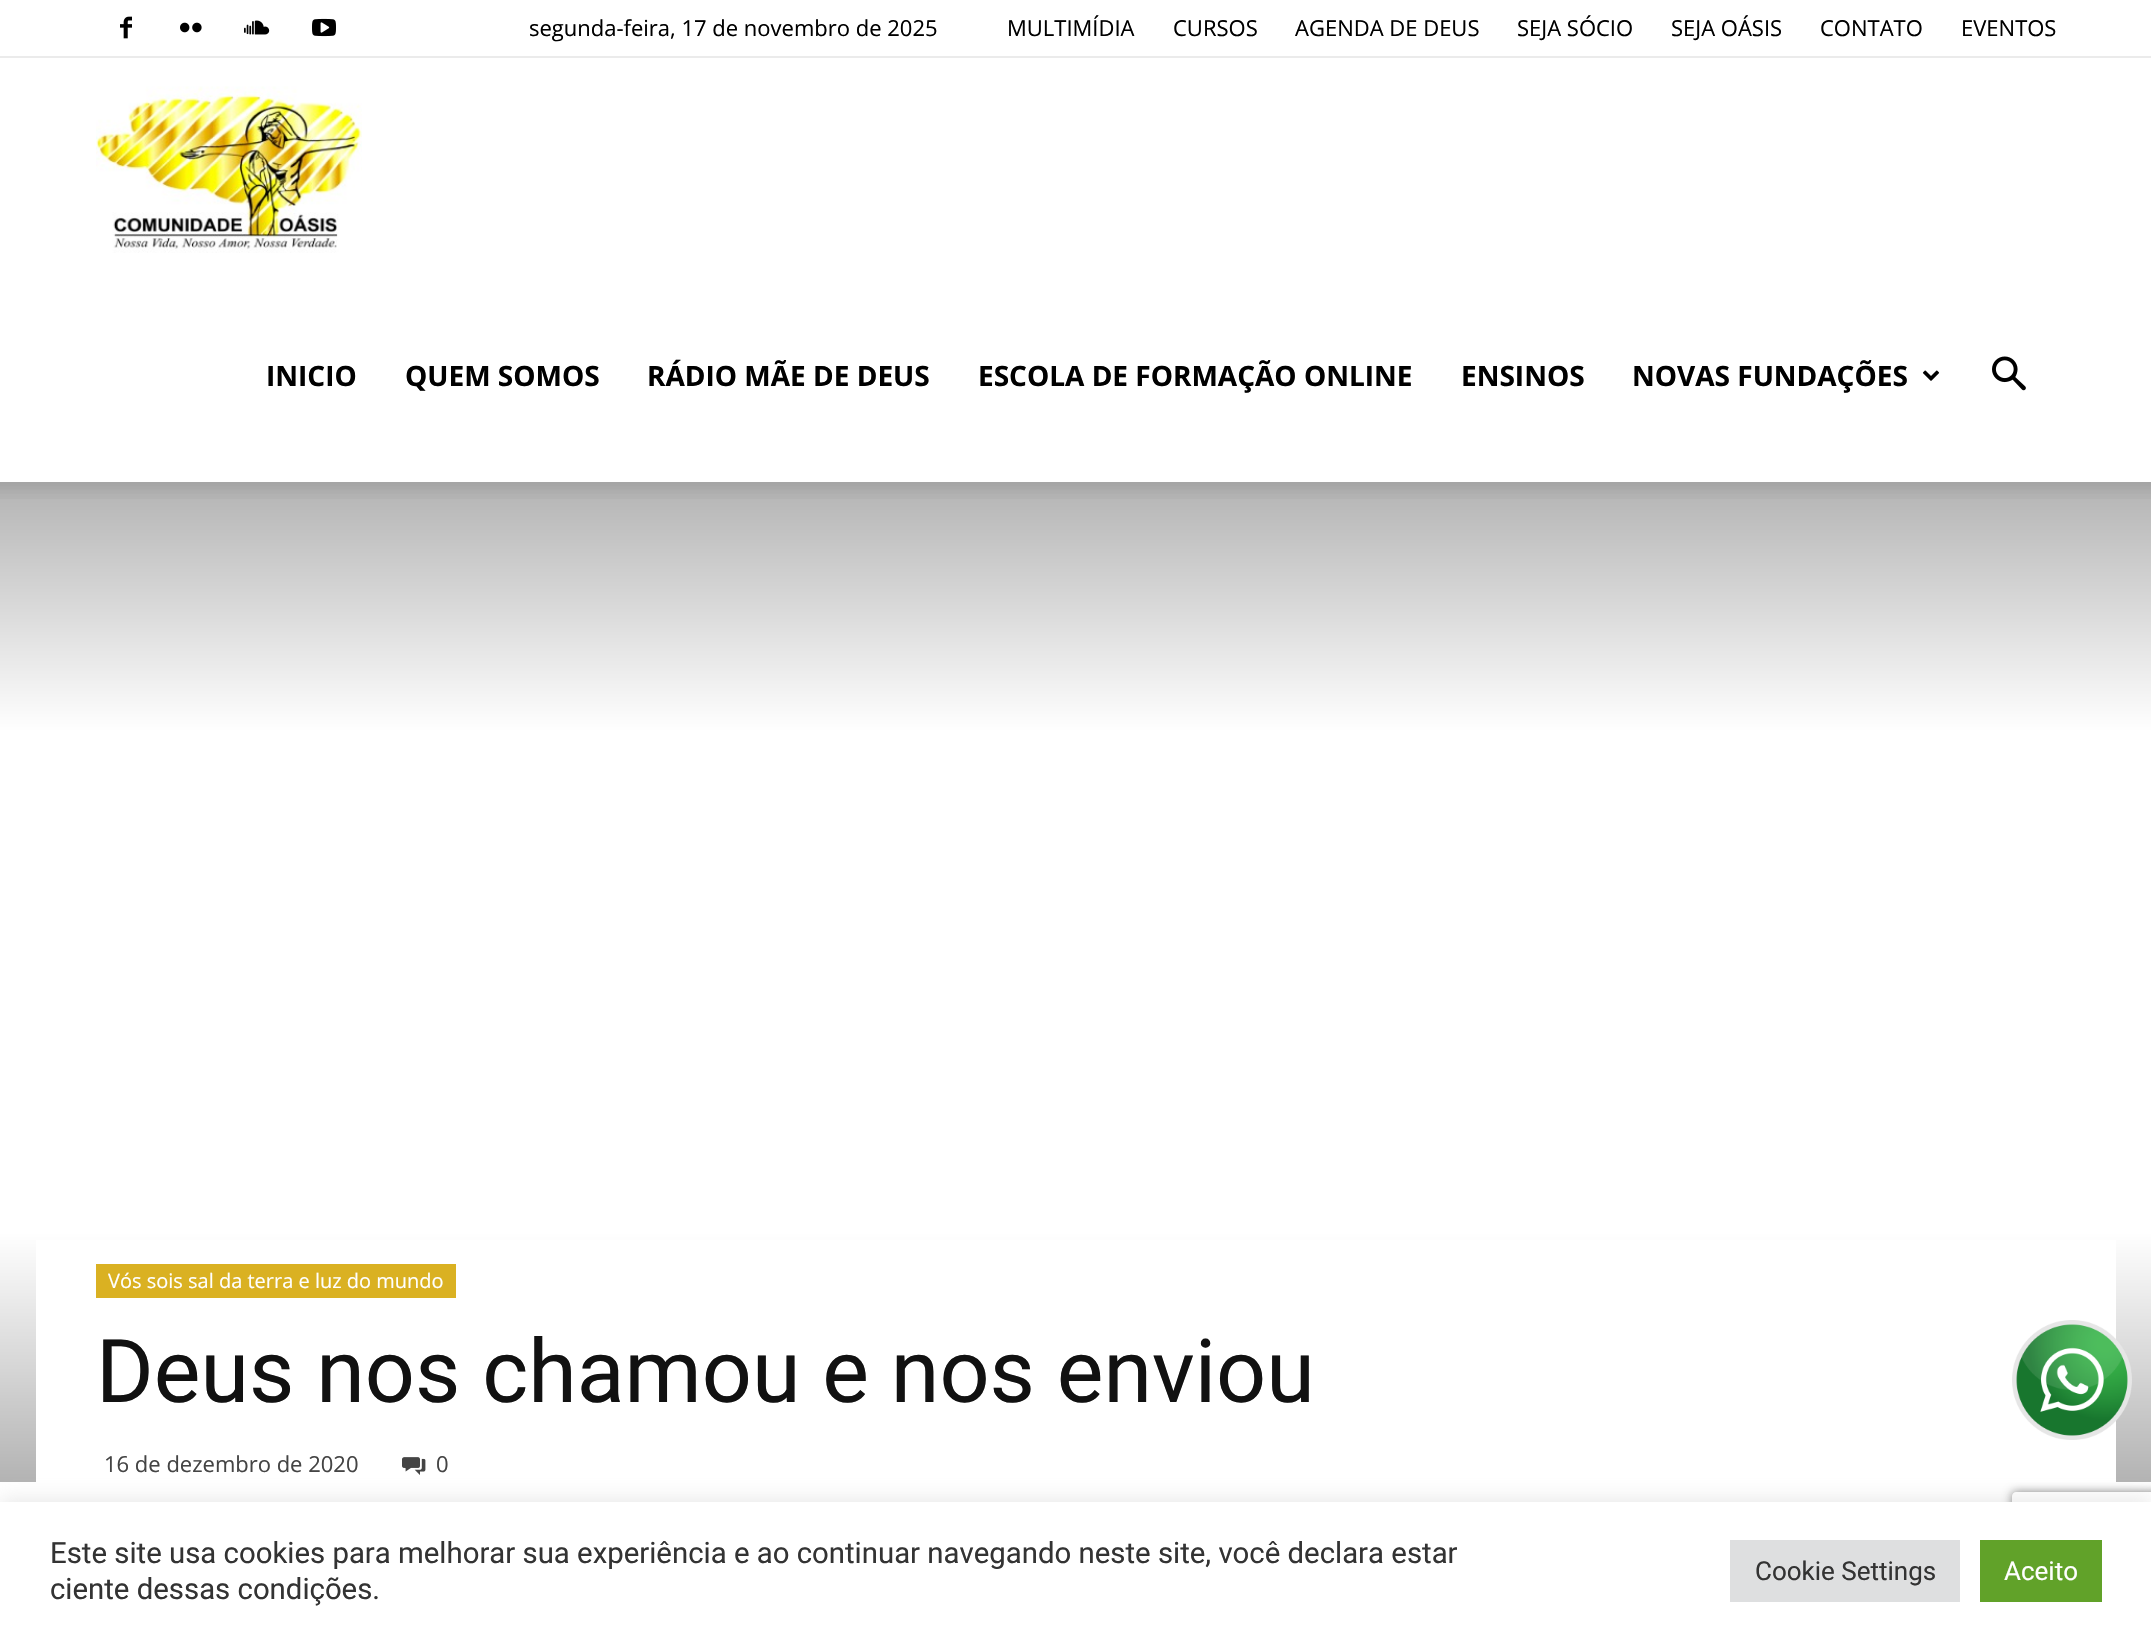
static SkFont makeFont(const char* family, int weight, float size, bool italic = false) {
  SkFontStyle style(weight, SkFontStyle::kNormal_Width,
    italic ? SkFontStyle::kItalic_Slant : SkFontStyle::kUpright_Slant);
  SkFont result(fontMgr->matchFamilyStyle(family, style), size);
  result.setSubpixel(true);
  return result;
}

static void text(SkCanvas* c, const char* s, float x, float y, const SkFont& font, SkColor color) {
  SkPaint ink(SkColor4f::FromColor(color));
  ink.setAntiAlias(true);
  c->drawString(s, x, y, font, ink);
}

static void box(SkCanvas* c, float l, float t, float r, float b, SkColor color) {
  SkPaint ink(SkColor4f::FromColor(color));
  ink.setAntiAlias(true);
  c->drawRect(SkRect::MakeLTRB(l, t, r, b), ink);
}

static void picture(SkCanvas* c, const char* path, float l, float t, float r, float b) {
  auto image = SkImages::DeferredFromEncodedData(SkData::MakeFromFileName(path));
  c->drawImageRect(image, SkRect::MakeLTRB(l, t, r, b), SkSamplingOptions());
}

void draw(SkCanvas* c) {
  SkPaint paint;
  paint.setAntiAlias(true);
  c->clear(0xffffffff);
  box(c, 0, 56, 2151, 58, 0xffebebeb);
  picture(c, "img_01.png", 120, 16, 132, 39);
  picture(c, "img_02.png", 180, 22, 202, 33);
  picture(c, "img_03.png", 244, 20, 270, 35);
  picture(c, "img_04.png", 312, 18, 336, 37);
  SkFont face1 = makeFont("Open Sans", 400, 22);
  text(c, "segunda-feira, 17 de novembro de 2025", 529, 36, face1, 0xff000000);
  text(c, "MULTIMÍDIA", 1007, 36, face1, 0xff000000);
  text(c, "CURSOS", 1173, 36, face1, 0xff000000);
  text(c, "AGENDA DE DEUS", 1295, 36, face1, 0xff000000);
  text(c, "SEJA SÓCIO", 1517, 36, face1, 0xff000000);
  text(c, "SEJA OÁSIS", 1671, 36, face1, 0xff000000);
  text(c, "CONTATO", 1820, 36, face1, 0xff000000);
  text(c, "EVENTOS", 1961, 36, face1, 0xff000000);
  picture(c, "img_05.png", 96, 86, 362, 253);
  SkFont face2 = makeFont("Open Sans", 700, 28);
  text(c, "INICIO", 266, 386, face2, 0xff000000);
  text(c, "QUEM SOMOS", 405, 386, face2, 0xff000000);
  text(c, "RÁDIO MÃE DE DEUS", 647, 386, face2, 0xff000000);
  text(c, "ESCOLA DE FORMAÇÃO ONLINE", 978, 386, face2, 0xff000000);
  text(c, "ENSINOS", 1461, 386, face2, 0xff000000);
  text(c, "NOVAS FUNDAÇÕES", 1632, 386, face2, 0xff000000);
  picture(c, "img_06.png", 1922, 370, 1940, 381);
  picture(c, "img_07.png", 1992, 356, 2026, 391);
  {
    const SkColor colors[] = {0xffb3b3b3, 0xffffffff, 0xffffffff, 0xffb3b3b3};
    const float stops[] = {0, 0.25f, 0.75f, 1};
    const SkPoint ends[] = {{1076, 482}, {1076, 1482}};
    paint.setShader(SkGradientShader::MakeLinear(ends, colors, stops, 4, SkTileMode::kClamp));
    paint.setAlpha(255);
  }
  c->drawRect(SkRect::MakeLTRB(0, 482, 2151, 1482), paint);
  picture(c, "img_08.png", 0, 482, 2151, 499);
  c->save();
  c->clipPath(SkPathBuilder(SkPathFillType::kEvenOdd).moveTo(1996, 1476).lineTo(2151, 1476).lineTo(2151, 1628).lineTo(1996, 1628).close().moveTo(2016, 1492).lineTo(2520, 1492).cubicTo(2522, 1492, 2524, 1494, 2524, 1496).lineTo(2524, 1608).cubicTo(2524, 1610, 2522, 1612, 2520, 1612).lineTo(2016, 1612).cubicTo(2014, 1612, 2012, 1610, 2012, 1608).lineTo(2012, 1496).cubicTo(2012, 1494, 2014, 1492, 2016, 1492).close().detach(), true);
  paint.setShader(nullptr);
  paint.setColor(0xff808080);
  paint.setMaskFilter(SkMaskFilter::MakeBlur(kNormal_SkBlurStyle, 5));
  c->drawRoundRect(SkRect::MakeLTRB(2012, 1492, 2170, 1612), 4, 4, paint);
  paint.setMaskFilter(nullptr);
  c->restore();
  box(c, 36, 1240, 2116, 1482, 0xffffffff);
  box(c, 96, 1264, 456, 1298, 0xffdab122);
  SkFont face3 = makeFont("Open Sans", 400, 20);
  text(c, "Vós sois sal da terra e luz do mundo", 108, 1288, face3, 0xffffffff);
  SkFont face4 = makeFont("Roboto", 400, 88);
  text(c, "Deus nos chamou e nos enviou", 96, 1402, face4, 0xff111111);
  text(c, "16 de dezembro de 2020", 104, 1472, face1, 0xff444444);
  picture(c, "img_09.png", 402, 1457, 426, 1475);
  text(c, "0", 436, 1472, face1, 0xff444444);
  picture(c, "img_10.png", 2012, 1320, 2132, 1440);
  paint.setColor(0x4dacabab);
  paint.setMaskFilter(SkMaskFilter::MakeBlur(kNormal_SkBlurStyle, 10));
  c->drawRect(SkRect::MakeLTRB(0, 1500, 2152, 1638), paint);
  paint.setMaskFilter(nullptr);
  box(c, 0, 1502, 2151, 1639, 0xffffffff);
  SkFont face5 = makeFont("Roboto", 400, 29.35f);
  text(c, "Este site usa cookies para melhorar sua experiência e ao continuar navegando neste site, você declara estar", 50, 1563, face5, 0xff333333);
  text(c, "ciente dessas condições.", 50, 1599, face5, 0xff333333);
  box(c, 1730, 1540, 1960, 1602, 0xffdedfe0);
  SkFont face6 = makeFont("Roboto", 400, 26);
  text(c, "Cookie Settings", 1755, 1580, face6, 0xff333333);
  box(c, 1980, 1540, 2102, 1602, 0xff61a229);
  text(c, "Aceito", 2004, 1580, face6, 0xffffffff);
}
